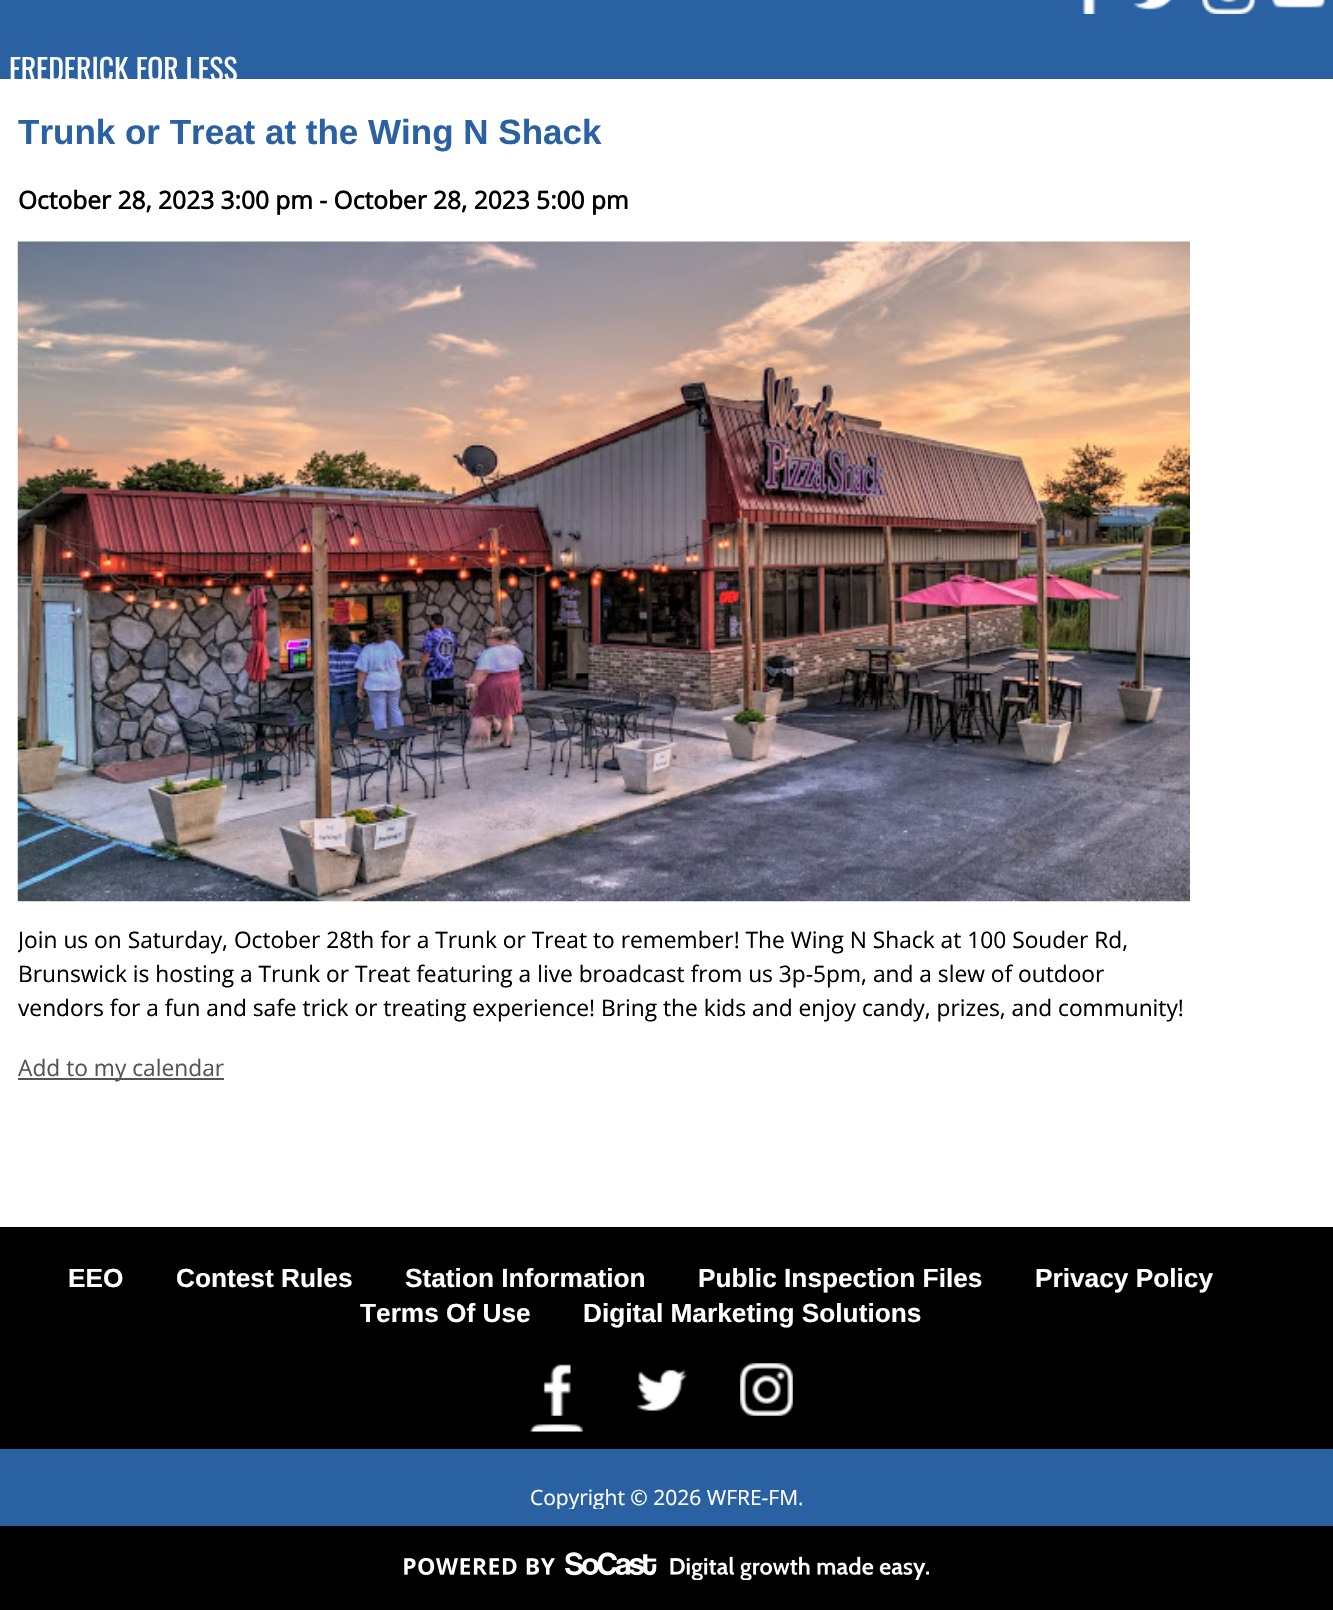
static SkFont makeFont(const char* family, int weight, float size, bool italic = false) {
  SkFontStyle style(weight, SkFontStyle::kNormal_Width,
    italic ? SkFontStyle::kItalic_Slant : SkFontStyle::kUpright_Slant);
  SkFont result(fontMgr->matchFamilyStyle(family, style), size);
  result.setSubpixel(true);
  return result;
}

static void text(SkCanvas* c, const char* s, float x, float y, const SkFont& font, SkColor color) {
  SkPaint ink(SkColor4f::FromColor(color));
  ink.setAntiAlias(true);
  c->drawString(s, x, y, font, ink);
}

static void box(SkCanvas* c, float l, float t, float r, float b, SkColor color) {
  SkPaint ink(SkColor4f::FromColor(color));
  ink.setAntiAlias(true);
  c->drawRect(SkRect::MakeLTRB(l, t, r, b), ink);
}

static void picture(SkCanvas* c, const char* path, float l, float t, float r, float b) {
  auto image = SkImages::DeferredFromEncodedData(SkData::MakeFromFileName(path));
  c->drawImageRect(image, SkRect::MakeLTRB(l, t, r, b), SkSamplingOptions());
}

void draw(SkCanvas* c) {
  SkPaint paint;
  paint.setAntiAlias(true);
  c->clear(0xff2a61a2);
  picture(c, "img_01.png", 1082, 0, 1096, 14);
  picture(c, "img_02.png", 1133, 0, 1172, 10);
  picture(c, "img_03.png", 1202, 0, 1255, 14);
  picture(c, "img_04.png", 1272, 0, 1325, 8);
  box(c, 0, 79, 1333, 1227, 0xffffffff);
  SkFont face1 = makeFont("Oswald", 400, 29.75f);
  text(c, "FREDERICK FOR LESS", 9, 81, face1, 0xffffffff);
  c->save();
  c->clipRect(SkRect::MakeLTRB(18, 114, 1190, 1192));
  SkFont face2 = makeFont("Liberation Sans", 700, 35);
  text(c, "Trunk or Treat at the Wing N Shack", 18, 144, face2, 0xff2a61a2);
  c->restore();
  SkFont face3 = makeFont("Open Sans", 700, 24.5f);
  text(c, "October 28, 2023 3:00 pm - October 28, 2023 5:00 pm", 18, 209, face3, 0xff000000);
  picture(c, "img_05.png", 17, 241, 1190, 902);
  c->save();
  c->clipRect(SkRect::MakeLTRB(18, 114, 1190, 1192));
  SkFont face4 = makeFont("Open Sans", 400, 22.75f);
  text(c, "Join us on Saturday, October 28th for a Trunk or Treat to remember! The Wing N Shack at 100 Souder Rd,", 18, 948, face4, 0xff000000);
  c->restore();
  text(c, "Brunswick is hosting a Trunk or Treat featuring a live broadcast from us 3p-5pm, and a slew of outdoor", 18, 982, face4, 0xff000000);
  text(c, "vendors for a fun and safe trick or treating experience! Bring the kids and enjoy candy, prizes, and community!", 18, 1016, face4, 0xff000000);
  box(c, 18, 1078, 224, 1080, 0xff555555);
  text(c, "Add to my calendar", 18, 1076, face4, 0xff555555);
  box(c, 0, 1227, 1333, 1449, 0xff000000);
  SkFont face5 = makeFont("Liberation Sans", 700, 26.25f);
  text(c, "EEO", 68, 1287, face5, 0xffffffff);
  text(c, "Contest Rules", 176, 1287, face5, 0xffffffff);
  text(c, "Station Information", 405, 1287, face5, 0xffffffff);
  text(c, "Public Inspection Files", 698, 1287, face5, 0xffffffff);
  text(c, "Privacy Policy", 1035, 1287, face5, 0xffffffff);
  text(c, "Terms Of Use", 360, 1322, face5, 0xffffffff);
  text(c, "Digital Marketing Solutions", 583, 1322, face5, 0xffffffff);
  picture(c, "img_06.png", 543, 1364, 571, 1416);
  picture(c, "img_07.png", 636, 1369, 687, 1411);
  picture(c, "img_08.png", 740, 1363, 793, 1416);
  picture(c, "img_09.png", 530, 1424, 583, 1432);
  c->save();
  c->clipRect(SkRect::MakeLTRB(0, 1467, 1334, 1509));
  SkFont face6 = makeFont("Open Sans", 400, 21);
  text(c, "Copyright © 2026 WFRE-FM.", 530, 1505, face6, 0xffffffff);
  c->restore();
  box(c, 0, 1526, 1333, 1610, 0xff000000);
  picture(c, "img_10.png", 404, 1552, 929, 1580);
}
